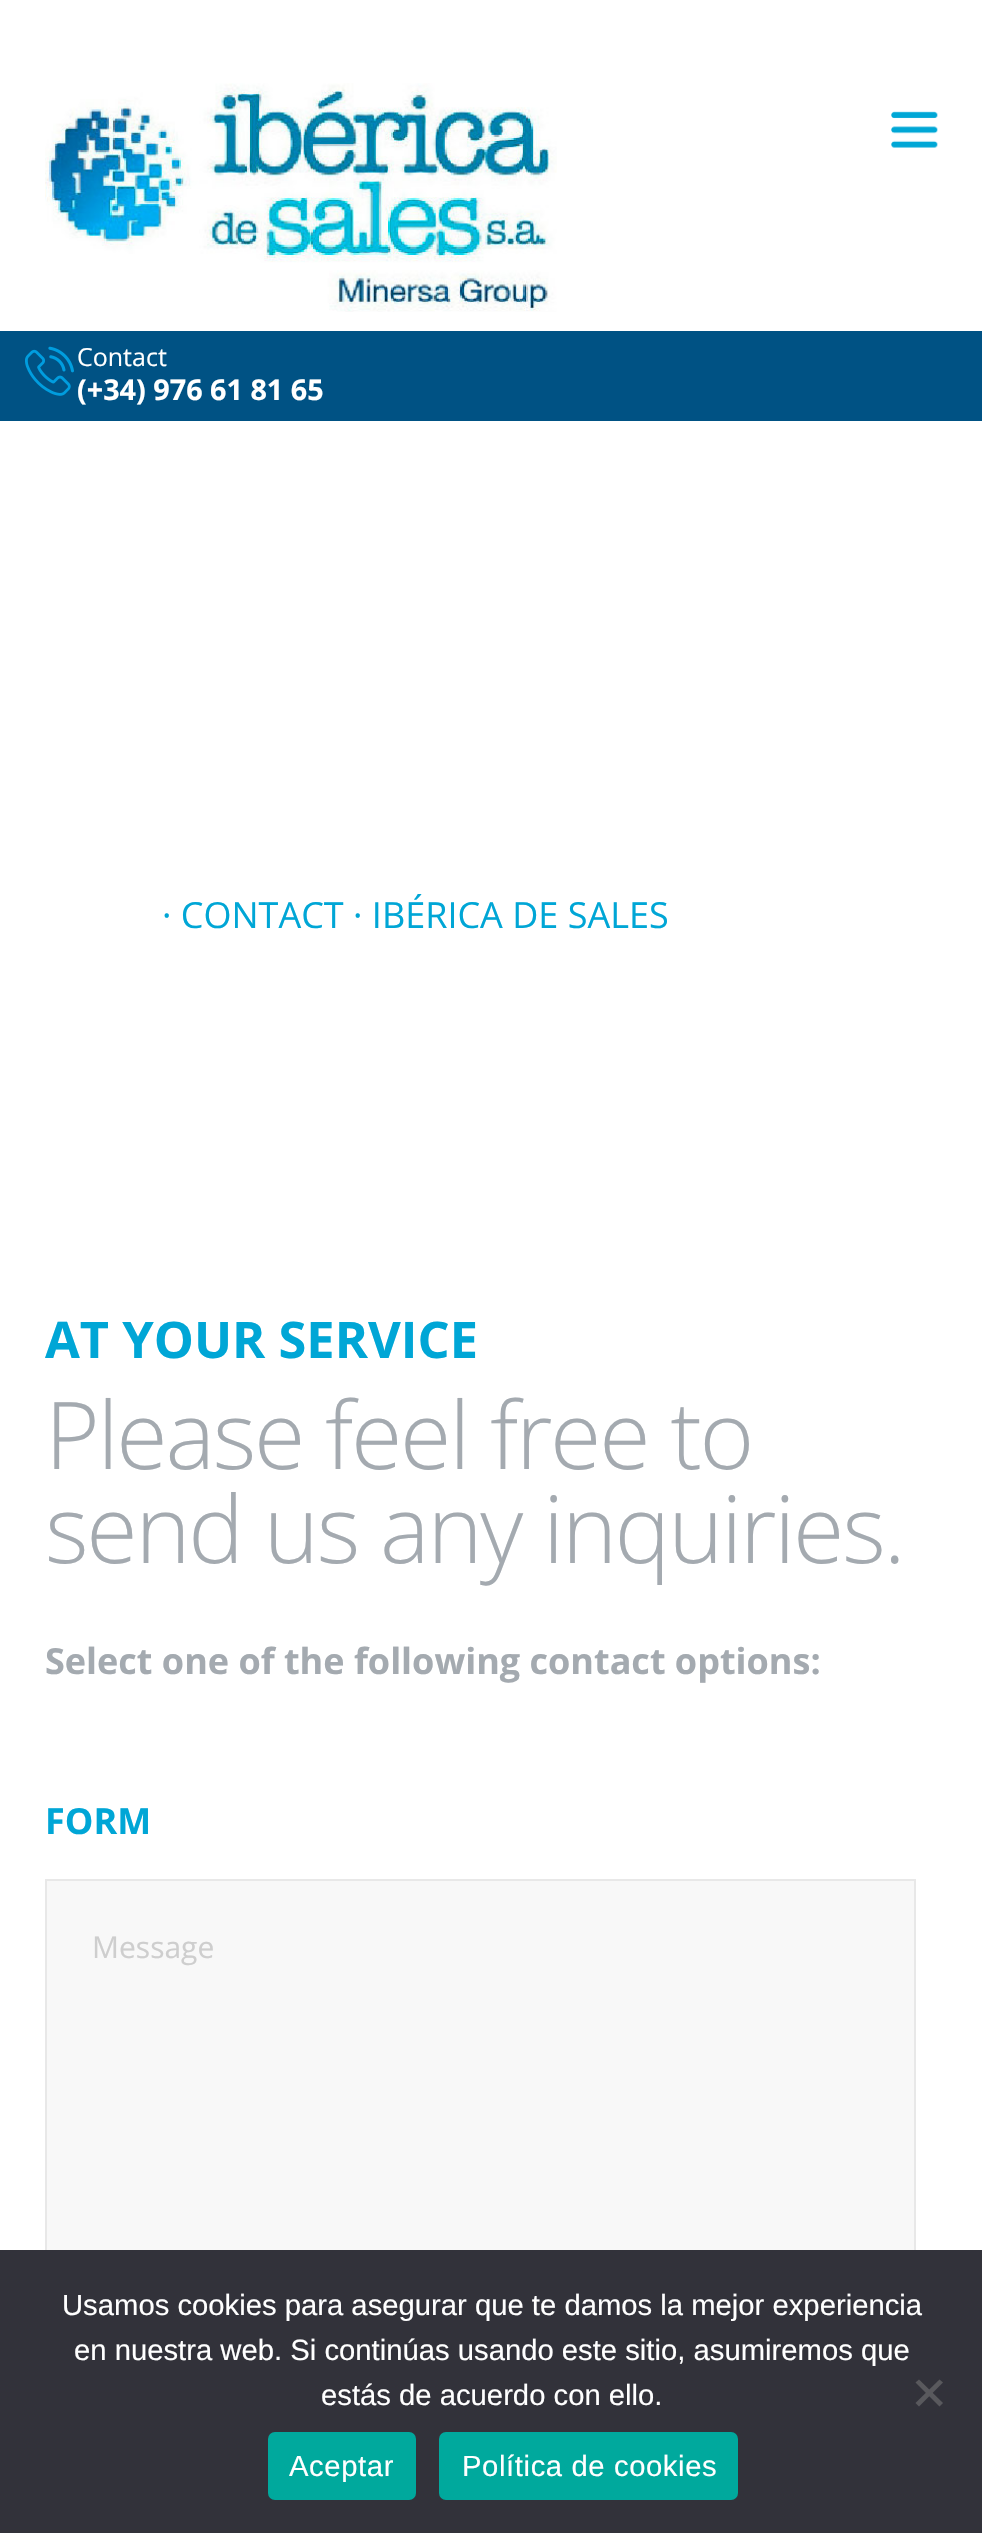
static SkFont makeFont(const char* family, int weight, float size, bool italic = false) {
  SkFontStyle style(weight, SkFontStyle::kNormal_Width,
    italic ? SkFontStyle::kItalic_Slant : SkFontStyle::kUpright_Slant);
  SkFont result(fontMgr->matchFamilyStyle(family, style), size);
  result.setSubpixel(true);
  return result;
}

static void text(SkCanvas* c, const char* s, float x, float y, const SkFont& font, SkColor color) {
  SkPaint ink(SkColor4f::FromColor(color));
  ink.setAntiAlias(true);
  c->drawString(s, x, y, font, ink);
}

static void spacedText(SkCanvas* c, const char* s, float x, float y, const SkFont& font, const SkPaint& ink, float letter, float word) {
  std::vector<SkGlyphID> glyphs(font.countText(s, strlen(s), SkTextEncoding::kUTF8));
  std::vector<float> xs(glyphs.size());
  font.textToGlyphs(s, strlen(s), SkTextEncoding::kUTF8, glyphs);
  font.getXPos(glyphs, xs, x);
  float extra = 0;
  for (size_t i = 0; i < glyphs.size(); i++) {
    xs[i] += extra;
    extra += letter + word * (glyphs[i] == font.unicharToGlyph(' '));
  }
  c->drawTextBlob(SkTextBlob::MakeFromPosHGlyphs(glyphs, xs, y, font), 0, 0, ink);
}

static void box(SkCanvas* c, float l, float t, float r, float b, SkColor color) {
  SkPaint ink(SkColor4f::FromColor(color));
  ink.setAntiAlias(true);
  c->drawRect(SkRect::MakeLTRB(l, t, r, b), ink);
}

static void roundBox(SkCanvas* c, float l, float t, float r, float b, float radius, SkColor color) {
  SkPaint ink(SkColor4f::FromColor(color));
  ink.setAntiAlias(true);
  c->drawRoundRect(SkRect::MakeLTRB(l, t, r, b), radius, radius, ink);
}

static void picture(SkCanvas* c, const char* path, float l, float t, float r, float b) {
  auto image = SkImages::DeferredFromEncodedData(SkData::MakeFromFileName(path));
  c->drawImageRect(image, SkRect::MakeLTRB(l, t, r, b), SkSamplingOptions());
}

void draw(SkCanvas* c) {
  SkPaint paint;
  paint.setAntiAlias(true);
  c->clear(0xffffffff);
  picture(c, "img_01.png", 45, 83, 557, 312);
  picture(c, "img_02.png", 891, 111, 938, 148);
  box(c, 0, 331, 982, 421, 0xff005284);
  picture(c, "img_03.png", 25, 346, 74, 396);
  SkFont face1 = makeFont("Open Sans", 400, 25);
  text(c, "Contact", 77, 366, face1, 0xffffffff);
  SkFont face2 = makeFont("Open Sans", 700, 28.75f);
  text(c, "(+34) 976 61 81 65", 77, 400, face2, 0xffffffff);
  SkFont face3 = makeFont("Open Sans", 400, 36);
  text(c, "· CONTACT · IBÉRICA DE SALES", 162, 928, face3, 0xff00a6d6);
  SkFont face4 = makeFont("Open Sans", 700, 50.5f);
  text(c, "AT YOUR SERVICE", 45, 1358, face4, 0xff00a6d6);
  SkFont face5 = makeFont("Open Sans", 300, 93.5f);
  paint.setColor(0xffa4aab0);
  spacedText(c, "Please feel free to", 45, 1469, face5, paint, -2.25f, 0);
  spacedText(c, "send us any inquiries.", 45, 1563, face5, paint, -2.25f, 0);
  SkFont face6 = makeFont("Open Sans", 700, 36);
  text(c, "Select one of the following contact options:", 45, 1674, face6, 0xffa4aab0);
  text(c, "FORM", 45, 1834, face6, 0xff00a6d6);
  box(c, 47, 1881, 914, 2250, 0xfff8f8f8);
  paint.setStyle(SkPaint::kStroke_Style);
  paint.setStrokeWidth(2);
  paint.setColor(0xffe8e8e8);
  c->drawRect(SkRect::MakeLTRB(46, 1880, 915, 2508), paint);
  SkFont face7 = makeFont("Open Sans", 400, 30);
  text(c, "Message", 92, 1958, face7, 0xffcecece);
  box(c, 0, 2250, 982, 2533, 0xff32323a);
  SkFont face8 = makeFont("Liberation Sans", 400, 29.25f);
  text(c, "Usamos cookies para asegurar que te damos la mejor experiencia", 62, 2315, face8, 0xffffffff);
  text(c, "en nuestra web. Si continúas usando este sitio, asumiremos que", 74, 2360, face8, 0xffffffff);
  text(c, "estás de acuerdo con ello.", 321, 2405, face8, 0xffffffff);
  paint.setStyle(SkPaint::kFill_Style);
  paint.setColor(0xff59595d);
  c->drawPath(SkPathBuilder().moveTo(939.5f, 2379.5f).lineTo(943, 2382.5f).lineTo(919, 2406.5f).lineTo(915.5f, 2403).close().detach(), paint);
  c->drawPath(SkPathBuilder().moveTo(915.5f, 2382.5f).lineTo(919, 2379.5f).lineTo(943, 2403).lineTo(939.5f, 2406.5f).close().detach(), paint);
  roundBox(c, 268, 2432, 416, 2500, 7, 0xff00a99d);
  paint.setColor(0xffffffff);
  spacedText(c, "Aceptar", 289, 2476, face8, paint, 0.6f, 0);
  roundBox(c, 439, 2432, 738, 2500, 7, 0xff00a99d);
  spacedText(c, "Política de cookies", 462, 2476, face8, paint, 0.6f, 0);
}
